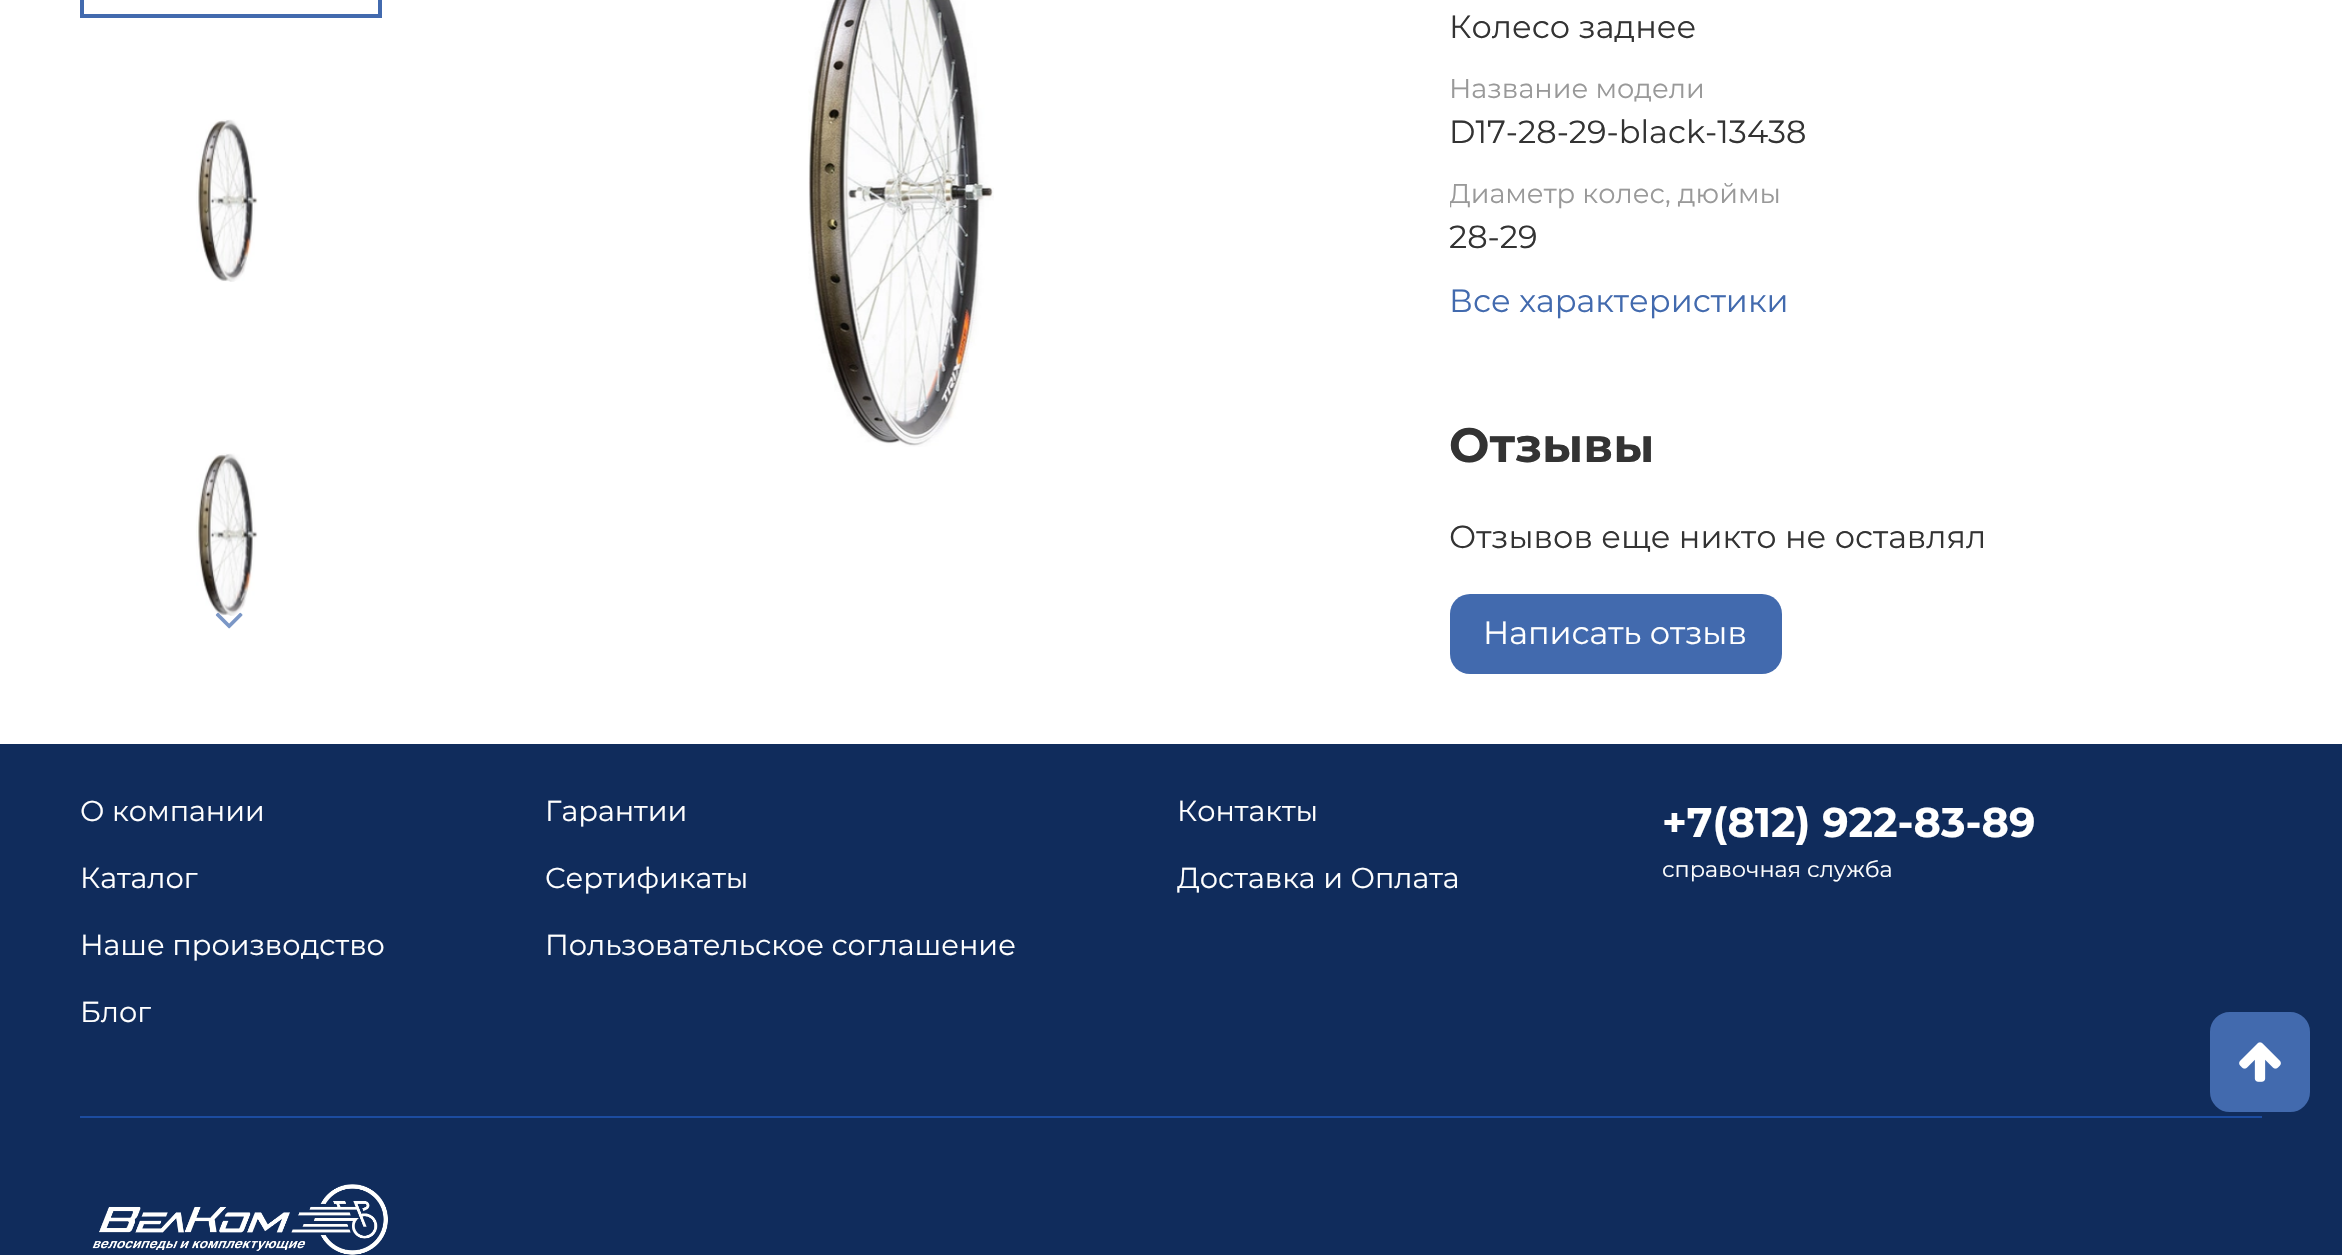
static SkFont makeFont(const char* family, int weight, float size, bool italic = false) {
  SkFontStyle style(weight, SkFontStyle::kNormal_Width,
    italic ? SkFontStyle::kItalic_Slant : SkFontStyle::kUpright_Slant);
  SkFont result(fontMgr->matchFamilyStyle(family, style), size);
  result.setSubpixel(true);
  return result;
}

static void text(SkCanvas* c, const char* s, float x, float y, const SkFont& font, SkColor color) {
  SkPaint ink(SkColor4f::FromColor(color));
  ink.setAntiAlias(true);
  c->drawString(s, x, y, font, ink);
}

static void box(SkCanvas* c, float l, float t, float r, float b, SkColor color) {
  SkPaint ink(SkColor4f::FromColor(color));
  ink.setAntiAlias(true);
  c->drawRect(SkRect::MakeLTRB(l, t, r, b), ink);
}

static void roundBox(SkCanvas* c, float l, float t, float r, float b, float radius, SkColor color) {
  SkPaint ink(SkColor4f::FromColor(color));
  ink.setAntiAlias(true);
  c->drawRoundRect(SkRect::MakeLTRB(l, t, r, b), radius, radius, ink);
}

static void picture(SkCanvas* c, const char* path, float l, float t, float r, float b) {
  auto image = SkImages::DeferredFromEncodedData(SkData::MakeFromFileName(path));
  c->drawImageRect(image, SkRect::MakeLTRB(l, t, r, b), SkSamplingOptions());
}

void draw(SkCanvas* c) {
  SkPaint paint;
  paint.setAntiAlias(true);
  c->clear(0xffffffff);
  paint.setStyle(SkPaint::kStroke_Style);
  paint.setStrokeWidth(4);
  paint.setColor(0xff426aae);
  c->drawRect(SkRect::MakeLTRB(82, -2, 380, 16), paint);
  picture(c, "img_01.png", 196, 119, 258, 282);
  picture(c, "img_02.png", 196, 453, 258, 616);
  picture(c, "img_03.png", 215, 612, 243, 629);
  picture(c, "img_04.png", 808, 0, 994, 447);
  SkFont face1 = makeFont("Montserrat", 400, 32);
  text(c, "Колесо заднее", 1449, 38, face1, 0xff333333);
  SkFont face2 = makeFont("Montserrat", 400, 27.25f);
  text(c, "Название модели", 1449, 98, face2, 0xff999999);
  text(c, "D17-28-29-black-13438", 1449, 143, face1, 0xff333333);
  c->save();
  c->clipRect(SkRect::MakeLTRB(1450, 0, 2262, 378));
  text(c, "Диаметр колес, дюймы", 1449, 203, face2, 0xff999999);
  c->restore();
  text(c, "28-29", 1449, 248, face1, 0xff333333);
  text(c, "Все характеристики", 1449, 312, face1, 0xff426aae);
  SkFont face3 = makeFont("Montserrat", 700, 48);
  text(c, "Отзывы", 1449, 462, face3, 0xff333333);
  text(c, "Отзывов еще никто не оставлял", 1449, 548, face1, 0xff333333);
  roundBox(c, 1450, 594, 1782, 674, 20, 0xff426aae);
  text(c, "Написать отзыв", 1483, 644, face1, 0xffffffff);
  box(c, 0, 744, 2342, 1255, 0xff102c5c);
  SkFont face4 = makeFont("Montserrat", 400, 28.75f);
  text(c, "О компании", 80, 821, face4, 0xffffffff);
  text(c, "Каталог", 80, 888, face4, 0xffffffff);
  text(c, "Наше производство", 80, 955, face4, 0xffffffff);
  text(c, "Блог", 80, 1022, face4, 0xffffffff);
  text(c, "Гарантии", 545, 821, face4, 0xffffffff);
  text(c, "Сертификаты", 545, 888, face4, 0xffffffff);
  text(c, "Пользовательское соглашение", 545, 955, face4, 0xffffffff);
  text(c, "Контакты", 1177, 821, face4, 0xffffffff);
  text(c, "Доставка и Оплата", 1177, 888, face4, 0xffffffff);
  SkFont face5 = makeFont("Montserrat", 700, 41.5f);
  text(c, "+7(812) 922-83-89", 1662, 837, face5, 0xffffffff);
  SkFont face6 = makeFont("Montserrat", 400, 22.4f);
  text(c, "справочная служба", 1662, 877, face6, 0xffffffff);
  box(c, 80, 1116, 2262, 1118, 0xff1c4ca0);
  picture(c, "img_05.png", 92, 1184, 388, 1255);
  paint.setStyle(SkPaint::kFill_Style);
  c->drawRoundRect(SkRect::MakeLTRB(2211, 1013, 2309, 1111), 19, 19, paint);
  paint.setStyle(SkPaint::kStroke_Style);
  paint.setStrokeWidth(2);
  c->drawRoundRect(SkRect::MakeLTRB(2211, 1013, 2309, 1111), 19, 19, paint);
  picture(c, "img_06.png", 2239, 1042, 2281, 1082);
}
